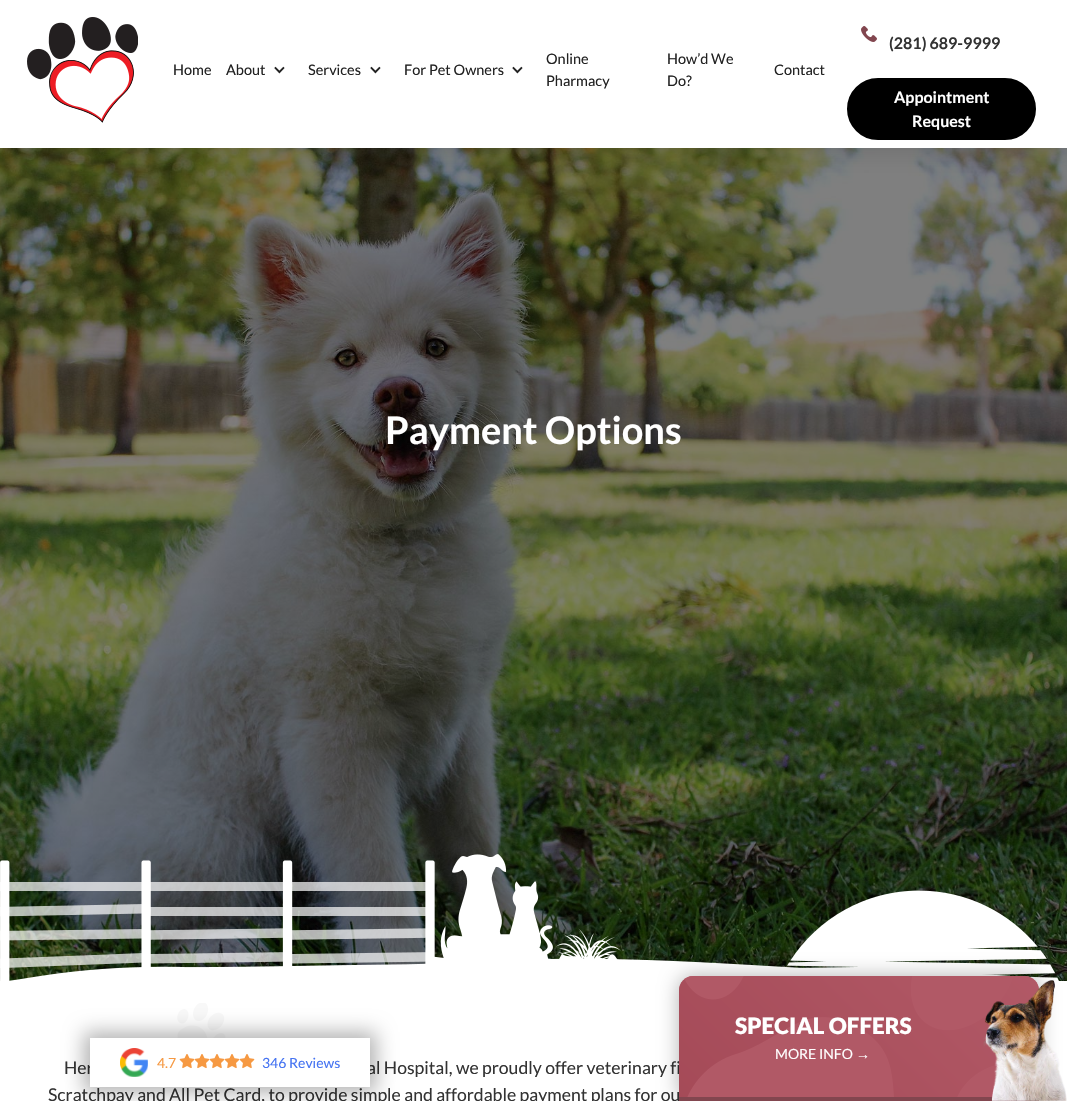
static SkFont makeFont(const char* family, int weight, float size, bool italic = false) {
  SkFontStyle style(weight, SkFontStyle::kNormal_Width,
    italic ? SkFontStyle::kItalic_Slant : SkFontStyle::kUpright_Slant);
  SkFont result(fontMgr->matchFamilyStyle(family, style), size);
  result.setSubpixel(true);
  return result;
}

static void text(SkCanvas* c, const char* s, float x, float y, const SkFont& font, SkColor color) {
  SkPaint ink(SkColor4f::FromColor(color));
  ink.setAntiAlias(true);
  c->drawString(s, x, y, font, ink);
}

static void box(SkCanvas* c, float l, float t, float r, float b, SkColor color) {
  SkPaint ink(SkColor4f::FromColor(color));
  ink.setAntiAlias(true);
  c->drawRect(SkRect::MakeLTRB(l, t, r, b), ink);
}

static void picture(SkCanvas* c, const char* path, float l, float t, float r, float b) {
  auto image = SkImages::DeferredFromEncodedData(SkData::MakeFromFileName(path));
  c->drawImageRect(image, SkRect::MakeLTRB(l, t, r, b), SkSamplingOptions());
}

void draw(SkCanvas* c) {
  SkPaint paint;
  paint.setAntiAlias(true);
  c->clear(0xffffffff);
  picture(c, "img_01.png", 80, 1003, 679, 1078);
  picture(c, "img_05.png", 0, 148, 1067, 981);
  paint.setColor(0x1a000000);
  paint.setMaskFilter(SkMaskFilter::MakeBlur(kNormal_SkBlurStyle, 10));
  c->drawRect(SkRect::MakeLTRB(7, 7, 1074, 155), paint);
  paint.setMaskFilter(nullptr);
  box(c, 0, 0, 1067, 148, 0xffffffff);
  picture(c, "img_02.png", 27, 17, 138, 123);
  SkFont face1 = makeFont("Lato", 400, 14.5f);
  text(c, "Home", 173, 75, face1, 0xff222222);
  text(c, "About", 226, 75, face1, 0xff222222);
  picture(c, "img_03.png", 274, 66, 285, 74);
  text(c, "Services", 308, 75, face1, 0xff222222);
  picture(c, "img_03.png", 370, 66, 381, 74);
  text(c, "For Pet Owners", 404, 75, face1, 0xff222222);
  picture(c, "img_03.png", 512, 66, 523, 74);
  text(c, "Online", 546, 64, face1, 0xff222222);
  text(c, "Pharmacy", 546, 86, face1, 0xff222222);
  text(c, "How’d We", 667, 64, face1, 0xff222222);
  text(c, "Do?", 667, 86, face1, 0xff222222);
  text(c, "Contact", 774, 75, face1, 0xff222222);
  picture(c, "img_04.png", 861, 26, 877, 42);
  SkFont face2 = makeFont("Lato", 700, 16);
  text(c, "(281) 689-9999", 889, 49, face2, 0xff333333);
  paint.setColor(0xff000000);
  c->drawRoundRect(SkRect::MakeLTRB(848, 79, 1035, 139), 30, 30, paint);
  paint.setStyle(SkPaint::kStroke_Style);
  paint.setStrokeWidth(2);
  c->drawRoundRect(SkRect::MakeLTRB(848, 79, 1035, 139), 30, 30, paint);
  text(c, "Appointment", 894, 103, face2, 0xffffffff);
  text(c, "Request", 912, 127, face2, 0xffffffff);
  SkFont face3 = makeFont("Lato", 700, 38);
  text(c, "Payment Options", 385, 444, face3, 0xffffffff);
  picture(c, "img_06.png", 0, 854, 1067, 1003);
  SkFont face4 = makeFont("Lato", 400, 17.6f);
  text(c, "Her", 64, 1074, face4, 0xff333333);
  text(c, "al Hospital, we proudly offer veterinary fi", 367, 1074, face4, 0xff333333);
  text(c, "Scratchpay and All Pet Card, to provide simple and affordable payment plans for ou", 48, 1101, face4, 0xff333333);
  paint.setStyle(SkPaint::kFill_Style);
  paint.setColor(0x4d000000);
  paint.setMaskFilter(SkMaskFilter::MakeBlur(kNormal_SkBlurStyle, 10));
  c->drawRoundRect(SkRect::MakeLTRB(679, 976, 1039, 1101), 14, 14, paint);
  paint.setMaskFilter(nullptr);
  {
    const SkColor colors[] = {0xffa54a57, 0xffc97581};
    const float stops[] = {0, 1};
    const SkPoint ends[] = {{739, 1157}, {979, 916}};
    paint.setShader(SkGradientShader::MakeLinear(ends, colors, stops, 2, SkTileMode::kClamp));
    paint.setAlpha(255);
  }
  c->drawPath(SkPathBuilder().moveTo(693, 976).lineTo(1025, 976).cubicTo(1032.5f, 976, 1039, 982.5f, 1039, 990).lineTo(1039, 1097).lineTo(679, 1097).lineTo(679, 990).cubicTo(679, 982.5f, 685.5f, 976, 693, 976).close().detach(), paint);
  picture(c, "img_07.png", 684, 976, 1014, 1097);
  paint.setShader(nullptr);
  paint.setColor(0xa6a54a57);
  c->drawPath(SkPathBuilder().moveTo(693, 976).lineTo(1025, 976).cubicTo(1032.5f, 976, 1039, 982.5f, 1039, 990).lineTo(1039, 1101).lineTo(679, 1101).lineTo(679, 990).cubicTo(679, 982.5f, 685.5f, 976, 693, 976).close().detach(), paint);
  box(c, 679, 1097, 1039, 1101, 0xff82464f);
  SkFont face5 = makeFont("Lato", 900, 22.5f);
  text(c, "SPECIAL OFFERS", 735, 1034, face5, 0xffffffff);
  SkFont face6 = makeFont("Lato", 400, 14);
  text(c, "MORE INFO", 775, 1059, face6, 0xffffffff);
  SkFont face7 = makeFont("Liberation Sans", 400, 14);
  text(c, "→", 856, 1059, face7, 0xffffffff);
  picture(c, "img_08.png", 983, 980, 1067, 1101);
  paint.setColor(0x4d000000);
  paint.setMaskFilter(SkMaskFilter::MakeBlur(kNormal_SkBlurStyle, 10));
  c->drawRect(SkRect::MakeLTRB(84, 1032, 376, 1093), paint);
  paint.setMaskFilter(nullptr);
  box(c, 90, 1038, 370, 1087, 0xffffffff);
  picture(c, "img_09.png", 120, 1048, 148, 1077);
  text(c, "4.7", 157, 1068, face6, 0xfff69942);
  picture(c, "img_10.png", 179, 1054, 195, 1069);
  picture(c, "img_11.png", 194, 1054, 210, 1069);
  picture(c, "img_11.png", 209, 1054, 225, 1069);
  picture(c, "img_11.png", 224, 1054, 240, 1069);
  picture(c, "img_11.png", 239, 1054, 255, 1069);
  text(c, "346 Reviews", 262, 1068, face6, 0xff4674f2);
}
